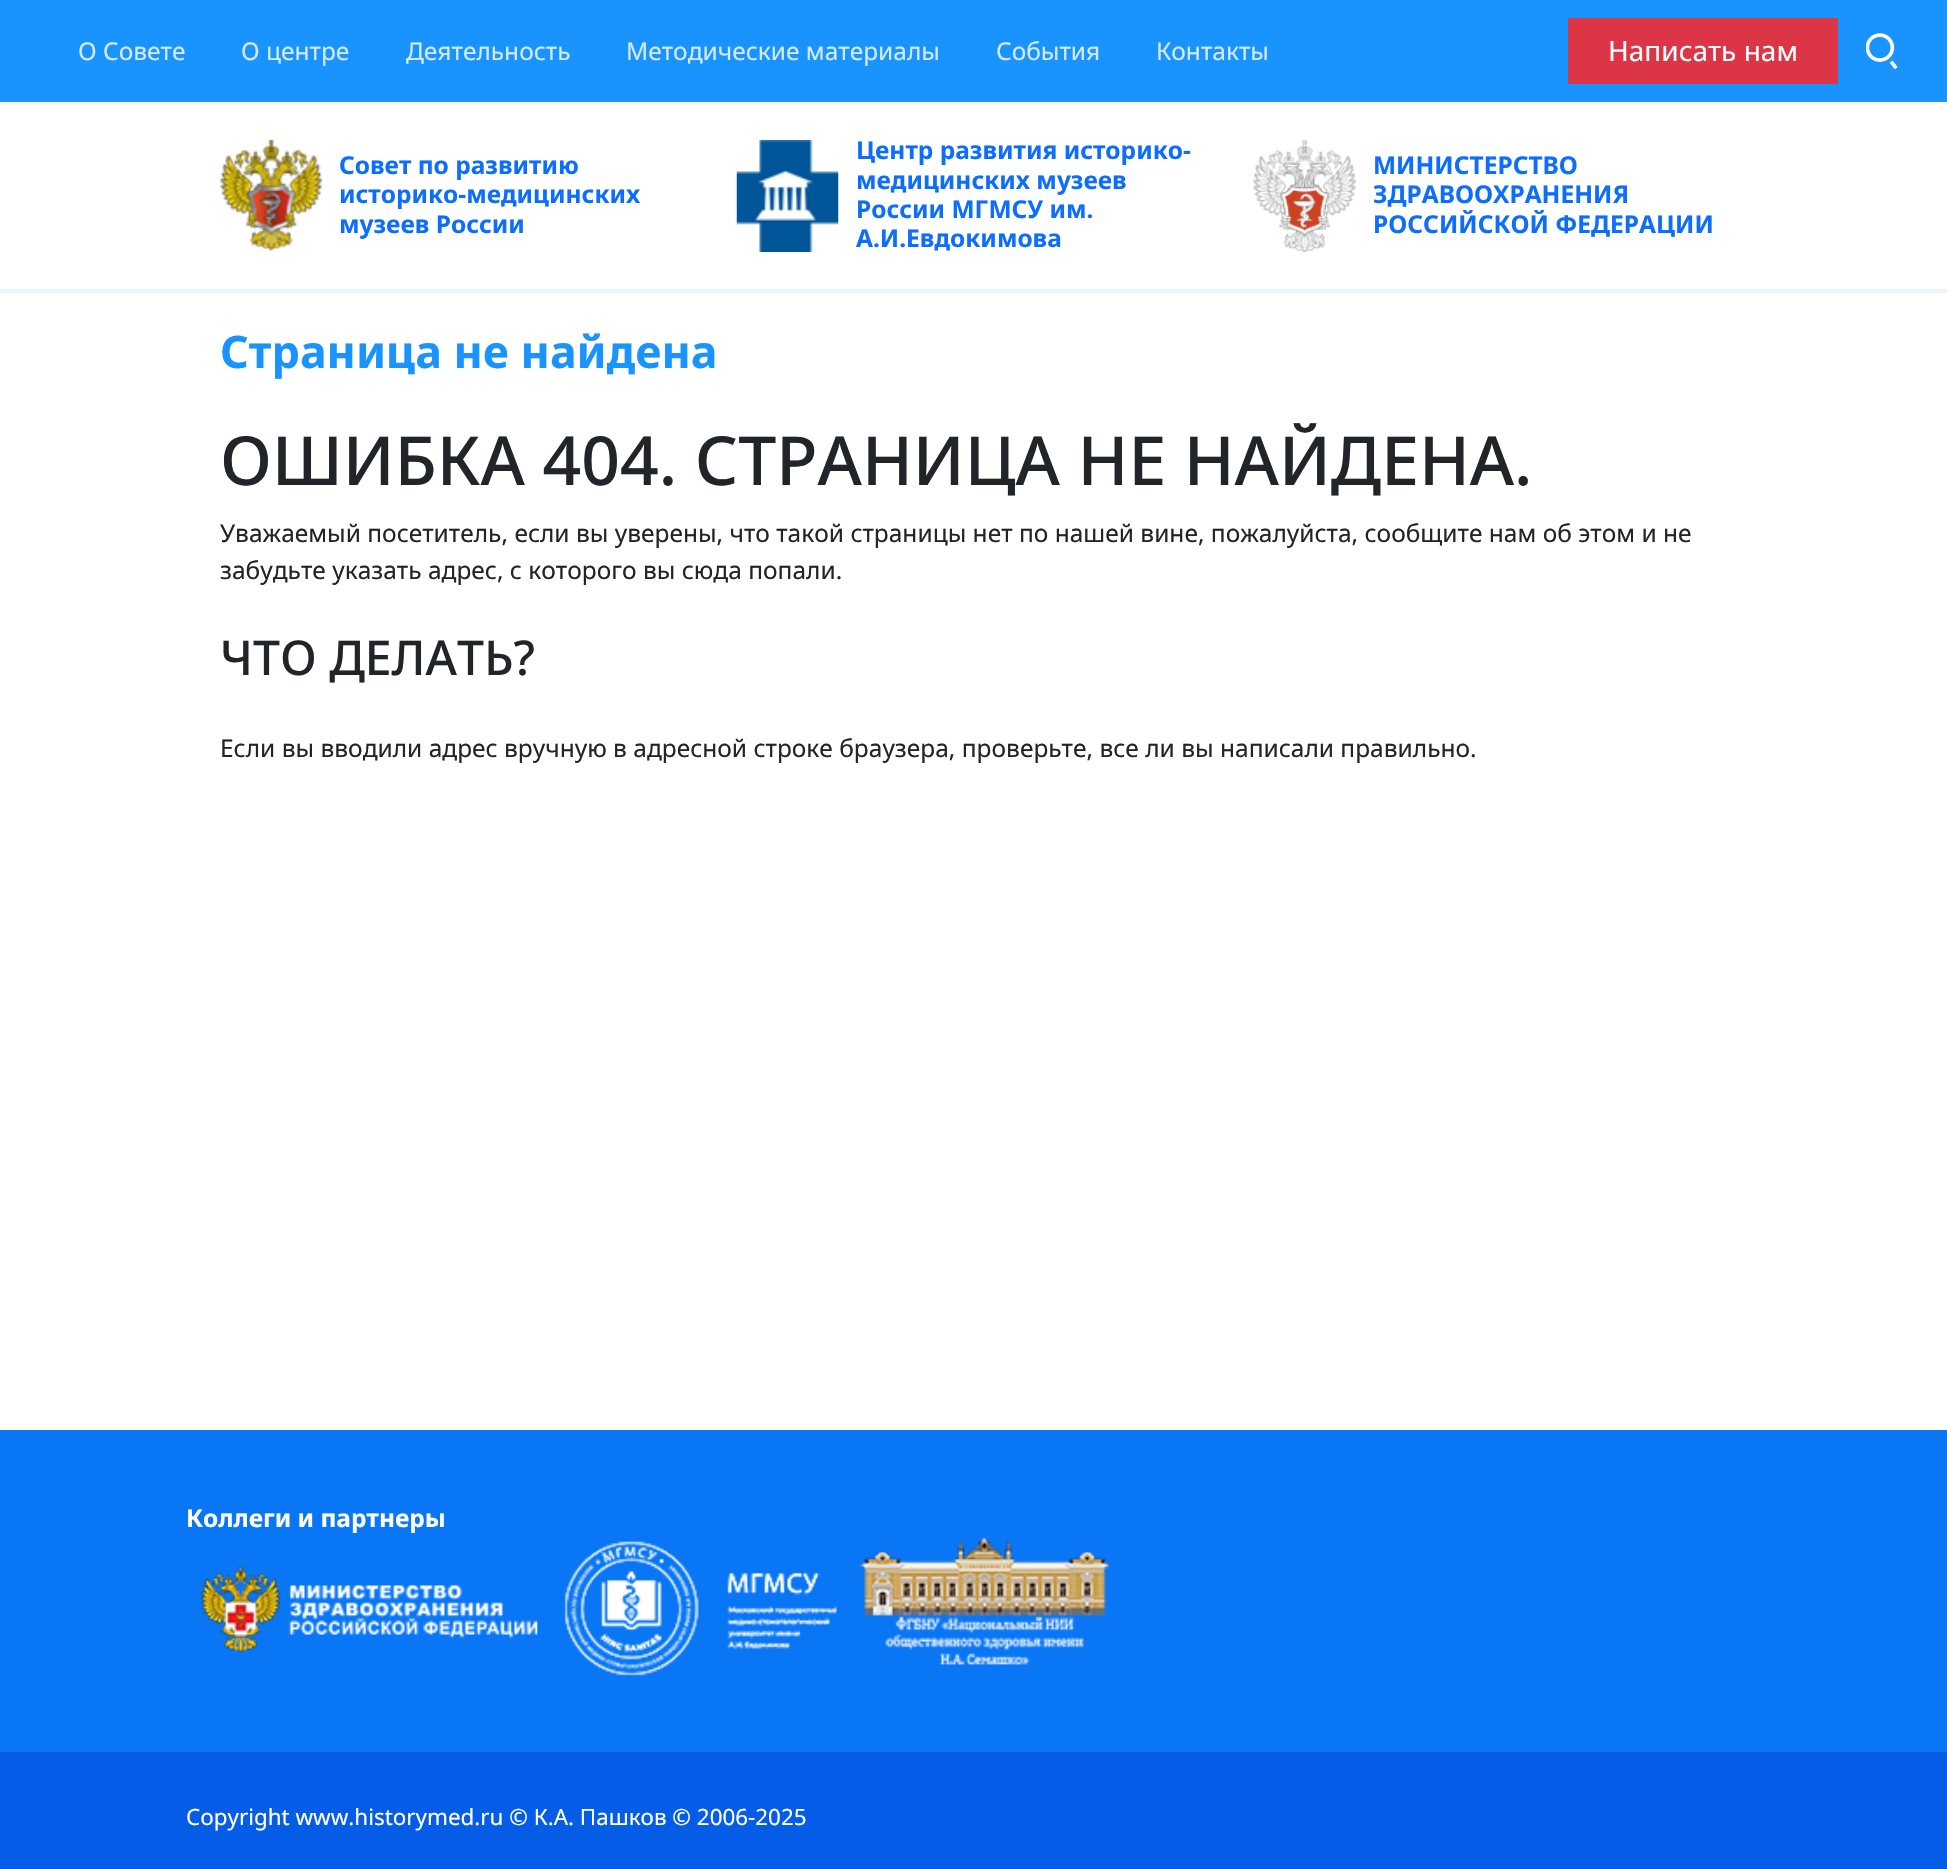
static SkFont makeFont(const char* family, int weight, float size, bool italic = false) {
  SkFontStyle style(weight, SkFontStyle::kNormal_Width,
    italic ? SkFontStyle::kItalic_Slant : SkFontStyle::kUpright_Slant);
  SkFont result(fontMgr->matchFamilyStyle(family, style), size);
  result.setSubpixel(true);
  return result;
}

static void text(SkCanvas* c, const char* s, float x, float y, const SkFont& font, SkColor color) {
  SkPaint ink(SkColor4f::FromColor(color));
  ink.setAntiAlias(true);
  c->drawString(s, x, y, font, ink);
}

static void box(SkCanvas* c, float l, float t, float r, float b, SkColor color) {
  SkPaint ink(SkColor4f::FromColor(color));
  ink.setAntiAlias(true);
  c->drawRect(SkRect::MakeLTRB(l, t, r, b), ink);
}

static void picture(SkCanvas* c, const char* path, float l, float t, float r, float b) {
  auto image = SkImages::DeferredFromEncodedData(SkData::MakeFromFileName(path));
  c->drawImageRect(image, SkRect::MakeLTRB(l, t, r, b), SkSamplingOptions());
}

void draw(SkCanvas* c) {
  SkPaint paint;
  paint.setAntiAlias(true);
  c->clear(0xffffffff);
  box(c, 0, 0, 1947, 102, 0xff1993fe);
  SkFont face1 = makeFont("Noto Sans", 400, 24.5f);
  text(c, "О Совете", 78, 60, face1, 0xffd3e9fc);
  text(c, "О центре", 241, 60, face1, 0xffd3e9fc);
  text(c, "Деятельность", 406, 60, face1, 0xffd3e9fc);
  text(c, "Методические материалы", 626, 60, face1, 0xffd3e9fc);
  text(c, "События", 996, 60, face1, 0xffd3e9fc);
  text(c, "Контакты", 1156, 60, face1, 0xffd3e9fc);
  box(c, 1568, 18, 1838, 84, 0xffdc3545);
  SkFont face2 = makeFont("Noto Sans", 400, 28);
  text(c, "Написать нам", 1608, 61, face2, 0xffffffff);
  picture(c, "img_01.png", 1866, 33, 1898, 69);
  box(c, 0, 289, 1947, 293, 0xffe6f4ff);
  picture(c, "img_02.png", 220, 140, 322, 251);
  SkFont face3 = makeFont("Noto Sans", 700, 24.5f);
  text(c, "Совет по развитию", 339, 174, face3, 0xff0d6efd);
  text(c, "историко-медицинских", 339, 203, face3, 0xff0d6efd);
  text(c, "музеев России", 339, 233, face3, 0xff0d6efd);
  picture(c, "img_03.png", 736, 140, 839, 252);
  text(c, "Центр развития историко-", 856, 159, face3, 0xff0d6efd);
  text(c, "медицинских музеев", 856, 189, face3, 0xff0d6efd);
  text(c, "России МГМСУ им.", 856, 218, face3, 0xff0d6efd);
  text(c, "А.И.Евдокимова", 856, 247, face3, 0xff0d6efd);
  picture(c, "img_04.png", 1253, 140, 1356, 252);
  text(c, "МИНИСТЕРСТВО", 1373, 174, face3, 0xff0d6efd);
  text(c, "ЗДРАВООХРАНЕНИЯ", 1373, 203, face3, 0xff0d6efd);
  text(c, "РОССИЙСКОЙ ФЕДЕРАЦИИ", 1373, 233, face3, 0xff0d6efd);
  SkFont face4 = makeFont("Noto Sans", 700, 44.75f);
  text(c, "Страница не найдена", 220, 368, face4, 0xff1993fe);
  SkFont face5 = makeFont("Noto Sans", 500, 67.75f);
  text(c, "ОШИБКА 404. СТРАНИЦА НЕ НАЙДЕНА.", 220, 485, face5, 0xff212529);
  text(c, "Уважаемый посетитель, если вы уверены, что такой страницы нет по нашей вине, пожалуйста, сообщите нам об этом и не", 220, 542, face1, 0xff212529);
  text(c, "забудьте указать адрес, с которого вы сюда попали.", 220, 579, face1, 0xff212529);
  SkFont face6 = makeFont("Noto Sans", 500, 48);
  text(c, "ЧТО ДЕЛАТЬ?", 220, 675, face6, 0xff212529);
  text(c, "Если вы вводили адрес вручную в адресной строке браузера, проверьте, все ли вы написали правильно.", 220, 757, face1, 0xff212529);
  box(c, 0, 1430, 1947, 1752, 0xff0976f5);
  text(c, "Коллеги и партнеры", 186, 1527, face3, 0xffffffff);
  picture(c, "img_05.png", 200, 1565, 538, 1653);
  picture(c, "img_06.png", 564, 1541, 837, 1676);
  picture(c, "img_07.png", 859, 1538, 1110, 1665);
  box(c, 0, 1752, 1947, 1869, 0xff055ce7);
  SkFont face7 = makeFont("Noto Sans", 400, 22.4f);
  text(c, "Copyright www.historymed.ru © К.А. Пашков © 2006-2025", 186, 1825, face7, 0xffffffff);
}
